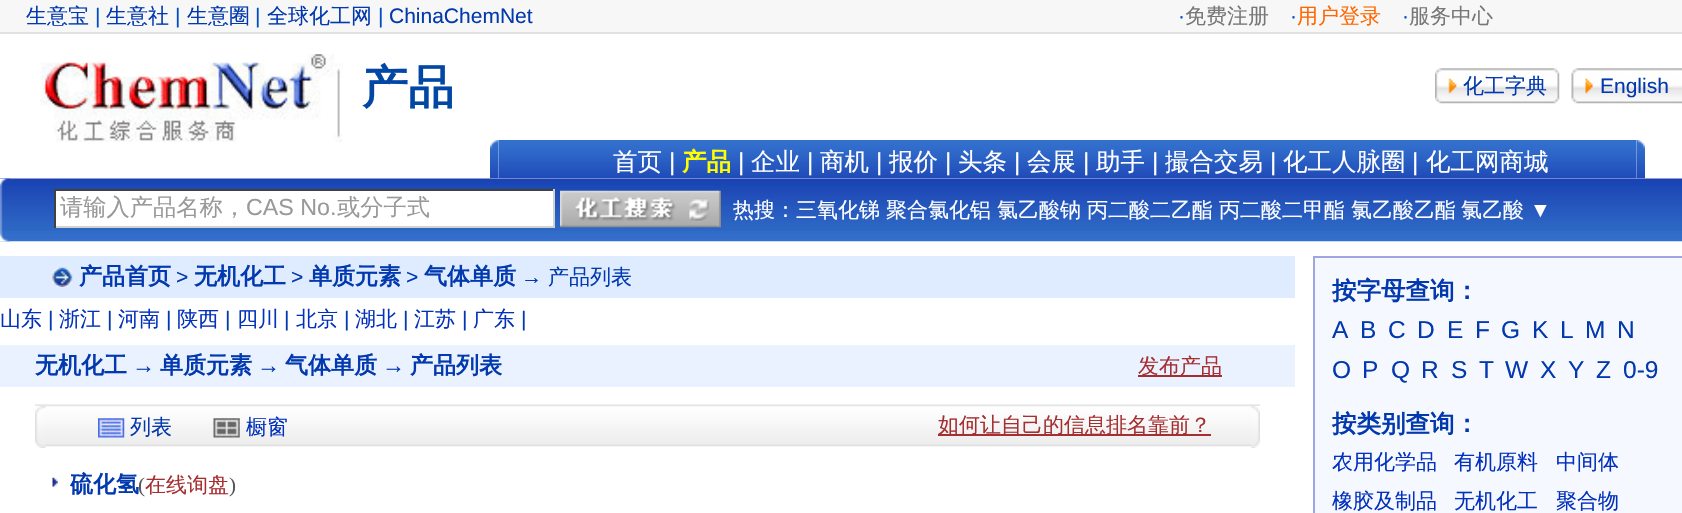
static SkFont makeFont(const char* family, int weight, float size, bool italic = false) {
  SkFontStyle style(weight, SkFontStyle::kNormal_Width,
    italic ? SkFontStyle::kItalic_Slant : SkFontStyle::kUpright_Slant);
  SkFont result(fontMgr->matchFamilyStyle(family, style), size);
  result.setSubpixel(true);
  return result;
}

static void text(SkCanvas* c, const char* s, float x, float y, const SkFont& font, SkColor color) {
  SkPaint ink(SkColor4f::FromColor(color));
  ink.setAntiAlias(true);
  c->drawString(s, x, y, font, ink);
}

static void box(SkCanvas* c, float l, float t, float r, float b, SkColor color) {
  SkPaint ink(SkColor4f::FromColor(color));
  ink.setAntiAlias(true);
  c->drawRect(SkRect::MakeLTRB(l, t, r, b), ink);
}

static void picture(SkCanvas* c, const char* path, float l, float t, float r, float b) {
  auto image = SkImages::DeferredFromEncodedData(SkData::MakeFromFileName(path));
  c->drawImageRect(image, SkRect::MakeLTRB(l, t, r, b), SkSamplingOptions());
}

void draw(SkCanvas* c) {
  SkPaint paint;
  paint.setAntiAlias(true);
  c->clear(0xffffffff);
  box(c, 0, 0, 1682, 32, 0xfff7f7f7);
  box(c, 0, 32, 1682, 34, 0xffe1e1e1);
  SkFont face1 = makeFont("WenQuanYi Zen Hei", 500, 21);
  text(c, "生意宝", 26, 23, face1, 0xff0239ae);
  SkFont face2 = makeFont("Liberation Sans", 400, 21);
  text(c, "|", 95, 23, face2, 0xff004cc7);
  text(c, "生意社", 106, 23, face1, 0xff0239ae);
  text(c, "|", 175, 23, face2, 0xff004cc7);
  text(c, "生意圈", 187, 23, face1, 0xff0239ae);
  text(c, "|", 255, 23, face2, 0xff004cc7);
  text(c, "全球化工网", 267, 23, face1, 0xff0239ae);
  text(c, "|", 378, 23, face2, 0xff004cc7);
  text(c, "ChinaChemNet", 389, 23, face2, 0xff0239ae);
  text(c, "·", 1178, 23, face2, 0xff004cc7);
  text(c, "免费注册", 1185, 23, face1, 0xff777777);
  text(c, "·", 1290, 23, face2, 0xff004cc7);
  text(c, "用户登录", 1297, 23, face1, 0xffff6600);
  text(c, "·", 1402, 23, face2, 0xff004cc7);
  text(c, "服务中心", 1409, 23, face1, 0xff777777);
  picture(c, "img_01.png", 40, 54, 343, 142);
  SkFont face3 = makeFont("WenQuanYi Zen Hei", 700, 46);
  text(c, "产品", 362, 103, face3, 0xff0247a4);
  picture(c, "img_02.png", 1435, 68, 1560, 104);
  text(c, "化工字典", 1463, 93, face1, 0xff0239ae);
  picture(c, "img_03.png", 1571, 68, 1682, 104);
  text(c, "English", 1600, 93, face2, 0xff0239ae);
  picture(c, "img_04.png", 490, 140, 499, 179);
  picture(c, "img_05.png", 498, 140, 1637, 179);
  SkFont face4 = makeFont("WenQuanYi Zen Hei", 500, 24.5f);
  text(c, "首页", 613, 170, face4, 0xffffffff);
  SkFont face5 = makeFont("Liberation Sans", 400, 24.5f);
  text(c, "|", 669, 170, face5, 0xffffffff);
  SkFont face6 = makeFont("WenQuanYi Zen Hei", 700, 24.5f);
  text(c, "产品", 682, 170, face6, 0xffffff00);
  text(c, "|", 738, 170, face5, 0xffffffff);
  text(c, "企业", 751, 170, face4, 0xffffffff);
  text(c, "|", 807, 170, face5, 0xffffffff);
  text(c, "商机", 820, 170, face4, 0xffffffff);
  text(c, "|", 876, 170, face5, 0xffffffff);
  text(c, "报价", 889, 170, face4, 0xffffffff);
  text(c, "|", 945, 170, face5, 0xffffffff);
  text(c, "头条", 958, 170, face4, 0xffffffff);
  text(c, "|", 1014, 170, face5, 0xffffffff);
  text(c, "会展", 1027, 170, face4, 0xffffffff);
  text(c, "|", 1083, 170, face5, 0xffffffff);
  text(c, "助手", 1096, 170, face4, 0xffffffff);
  text(c, "|", 1152, 170, face5, 0xffffffff);
  text(c, "撮合交易", 1165, 170, face4, 0xffffffff);
  text(c, "|", 1270, 170, face5, 0xffffffff);
  text(c, "化工人脉圈", 1283, 170, face4, 0xffffffff);
  text(c, "|", 1412, 170, face5, 0xffffffff);
  text(c, "化工网商城", 1426, 170, face4, 0xffffffff);
  picture(c, "img_06.png", 1636, 140, 1645, 179);
  picture(c, "img_07.png", 0, 178, 1682, 242);
  picture(c, "img_08.png", 0, 178, 11, 242);
  box(c, 56, 191, 553, 226, 0xffffffff);
  box(c, 54, 189, 555, 191, 0xff41413f);
  box(c, 553, 189, 555, 228, 0xffd2d3ce);
  box(c, 54, 226, 555, 228, 0xffd2d3ce);
  box(c, 54, 189, 56, 228, 0xff41413f);
  SkFont face7 = makeFont("WenQuanYi Zen Hei", 500, 23.25f);
  text(c, "请输入产品名称，", 60, 215, face7, 0xff999999);
  SkFont face8 = makeFont("Liberation Sans", 400, 23.25f);
  text(c, "CAS No.", 246, 215, face8, 0xff999999);
  text(c, "或分子式", 337, 215, face7, 0xff999999);
  picture(c, "img_09.png", 560, 190, 721, 228);
  text(c, "热搜：三氧化锑", 733, 217, face1, 0xffffffff);
  text(c, "聚合氯化铝", 886, 217, face1, 0xffffffff);
  text(c, "氯乙酸钠", 997, 217, face1, 0xffffffff);
  text(c, "丙二酸二乙酯", 1087, 217, face1, 0xffffffff);
  text(c, "丙二酸二甲酯", 1219, 217, face1, 0xffffffff);
  text(c, "氯乙酸乙酯", 1351, 217, face1, 0xffffffff);
  text(c, "氯乙酸", 1461, 217, face1, 0xffffffff);
  text(c, "▼", 1530, 217, face2, 0xffffffff);
  box(c, 0, 256, 1295, 298, 0xffdfebff);
  picture(c, "img_10.png", 52, 267, 73, 287);
  SkFont face9 = makeFont("WenQuanYi Zen Hei", 700, 23);
  text(c, "产品首页", 79, 284, face9, 0xff0239ae);
  text(c, ">", 176, 284, face2, 0xff0239ae);
  text(c, "无机化工", 194, 284, face9, 0xff0239ae);
  text(c, ">", 291, 284, face2, 0xff0239ae);
  text(c, "单质元素", 309, 284, face9, 0xff0239ae);
  text(c, ">", 406, 284, face2, 0xff0239ae);
  text(c, "气体单质", 424, 284, face9, 0xff0239ae);
  text(c, "→", 521, 284, face2, 0xff0239ae);
  text(c, "产品列表", 548, 284, face1, 0xff0239ae);
  text(c, "山东", 0, 326, face1, 0xff0331bc);
  text(c, "|", 48, 326, face2, 0xff0239ae);
  text(c, "浙江", 59, 326, face1, 0xff0331bc);
  text(c, "|", 107, 326, face2, 0xff0239ae);
  text(c, "河南", 118, 326, face1, 0xff0331bc);
  text(c, "|", 166, 326, face2, 0xff0239ae);
  text(c, "陕西", 177, 326, face1, 0xff0331bc);
  text(c, "|", 225, 326, face2, 0xff0239ae);
  text(c, "四川", 237, 326, face1, 0xff0331bc);
  text(c, "|", 284, 326, face2, 0xff0239ae);
  text(c, "北京", 296, 326, face1, 0xff0331bc);
  text(c, "|", 344, 326, face2, 0xff0239ae);
  text(c, "湖北", 355, 326, face1, 0xff0331bc);
  text(c, "|", 403, 326, face2, 0xff0239ae);
  text(c, "江苏", 414, 326, face1, 0xff0331bc);
  text(c, "|", 462, 326, face2, 0xff0239ae);
  text(c, "广东", 473, 326, face1, 0xff0331bc);
  text(c, "|", 521, 326, face2, 0xff0239ae);
  box(c, 0, 345, 1295, 387, 0xffeaf2ff);
  text(c, "无机化工", 35, 373, face9, 0xff0239ae);
  SkFont face10 = makeFont("Liberation Serif", 700, 23);
  text(c, "→", 132, 373, face10, 0xff0239ae);
  text(c, "单质元素", 160, 373, face9, 0xff0239ae);
  text(c, "→", 257, 373, face10, 0xff0239ae);
  text(c, "气体单质", 285, 373, face9, 0xff0239ae);
  text(c, "→", 382, 373, face10, 0xff0239ae);
  text(c, "产品列表", 410, 373, face9, 0xff0239ae);
  box(c, 1138, 375, 1222, 377, 0xffa52e30);
  text(c, "发布产品", 1138, 373, face1, 0xffa52e30);
  picture(c, "img_11.png", 35, 404, 1260, 447);
  picture(c, "img_12.png", 35, 406, 46, 448);
  picture(c, "img_13.png", 98, 418, 125, 438);
  text(c, "列表", 130, 434, face1, 0xff0239ae);
  picture(c, "img_14.png", 213, 418, 240, 438);
  text(c, "橱窗", 246, 434, face1, 0xff0331bc);
  box(c, 938, 434, 1211, 436, 0xffa52e30);
  text(c, "如何让自己的信息排名靠前？", 938, 432, face1, 0xffa52e30);
  picture(c, "img_15.png", 1251, 406, 1260, 448);
  picture(c, "img_16.png", 52, 477, 58, 487);
  text(c, "硫化氢", 70, 492, face9, 0xff0239ae);
  SkFont face11 = makeFont("Liberation Serif", 400, 21);
  text(c, "(", 138, 492, face11, 0xff555555);
  text(c, "在线询盘", 145, 492, face1, 0xffa52e30);
  text(c, ")", 229, 492, face11, 0xff555555);
  paint.setColor(0xfff5f8ff);
  c->drawRect(SkRect::MakeLTRB(1314, 257, 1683, 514), paint);
  paint.setStyle(SkPaint::kStroke_Style);
  paint.setStrokeWidth(2);
  paint.setColor(0xff9ea5e2);
  c->drawRect(SkRect::MakeLTRB(1314, 257, 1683, 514), paint);
  text(c, "按字母查询：", 1332, 299, face6, 0xff0239ae);
  text(c, "A", 1332, 338, face5, 0xff0239ae);
  text(c, "B", 1360, 338, face5, 0xff0239ae);
  text(c, "C", 1388, 338, face5, 0xff0239ae);
  text(c, "D", 1417, 338, face5, 0xff0239ae);
  text(c, "E", 1447, 338, face5, 0xff0239ae);
  text(c, "F", 1475, 338, face5, 0xff0239ae);
  text(c, "G", 1501, 338, face5, 0xff0239ae);
  text(c, "K", 1532, 338, face5, 0xff0239ae);
  text(c, "L", 1560, 338, face5, 0xff0239ae);
  text(c, "M", 1585, 338, face5, 0xff0239ae);
  text(c, "N", 1617, 338, face5, 0xff0239ae);
  text(c, "O", 1332, 378, face5, 0xff0239ae);
  text(c, "P", 1362, 378, face5, 0xff0239ae);
  text(c, "Q", 1391, 378, face5, 0xff0239ae);
  text(c, "R", 1421, 378, face5, 0xff0239ae);
  text(c, "S", 1451, 378, face5, 0xff0239ae);
  text(c, "T", 1479, 378, face5, 0xff0239ae);
  text(c, "W", 1505, 378, face5, 0xff0239ae);
  text(c, "X", 1540, 378, face5, 0xff0239ae);
  text(c, "Y", 1568, 378, face5, 0xff0239ae);
  text(c, "Z", 1596, 378, face5, 0xff0239ae);
  text(c, "0-9", 1623, 378, face5, 0xff0239ae);
  text(c, "按类别查询：", 1332, 432, face6, 0xff0239ae);
  text(c, "农用化学品", 1332, 469, face1, 0xff0331bc);
  text(c, "有机原料", 1454, 469, face1, 0xff0331bc);
  text(c, "中间体", 1556, 469, face1, 0xff0331bc);
  text(c, "橡胶及制品", 1332, 508, face1, 0xff0331bc);
  text(c, "无机化工", 1454, 508, face1, 0xff0331bc);
  text(c, "聚合物", 1556, 508, face1, 0xff0331bc);
}
